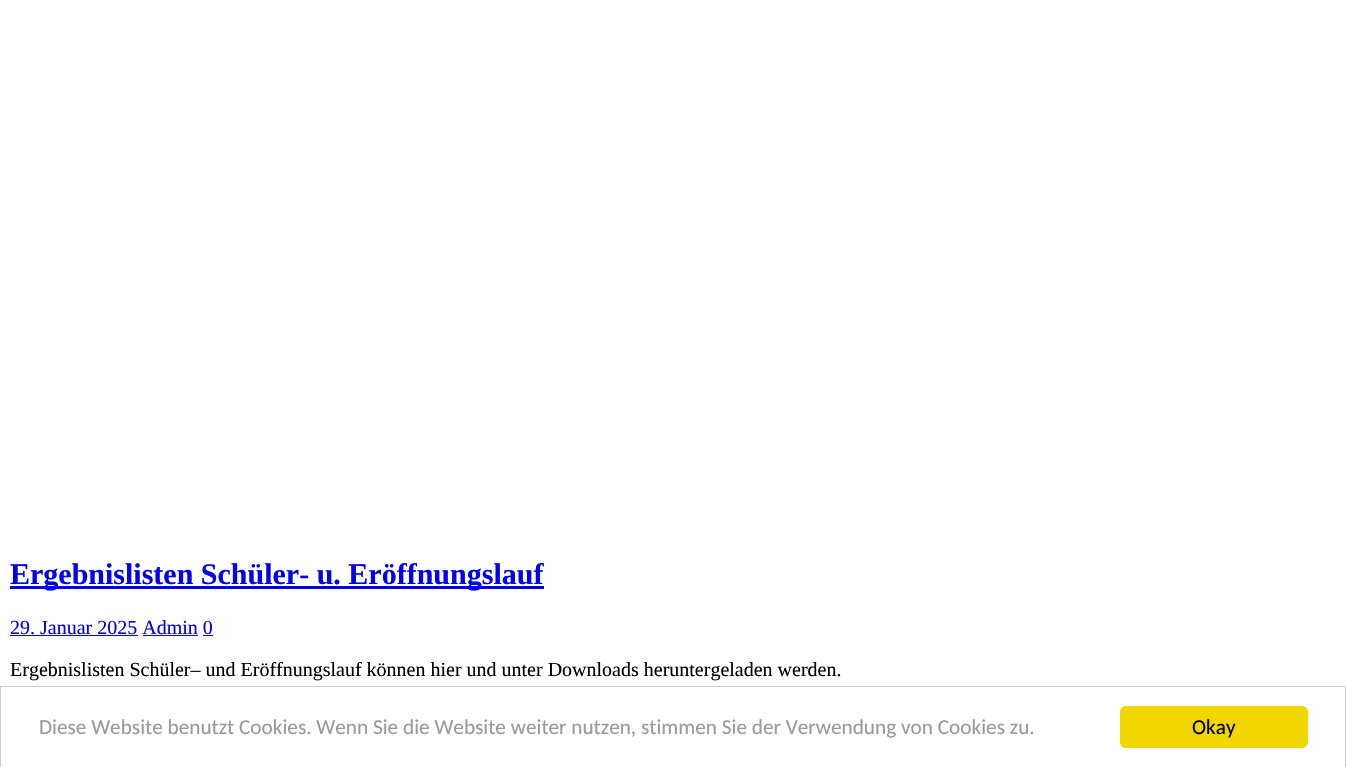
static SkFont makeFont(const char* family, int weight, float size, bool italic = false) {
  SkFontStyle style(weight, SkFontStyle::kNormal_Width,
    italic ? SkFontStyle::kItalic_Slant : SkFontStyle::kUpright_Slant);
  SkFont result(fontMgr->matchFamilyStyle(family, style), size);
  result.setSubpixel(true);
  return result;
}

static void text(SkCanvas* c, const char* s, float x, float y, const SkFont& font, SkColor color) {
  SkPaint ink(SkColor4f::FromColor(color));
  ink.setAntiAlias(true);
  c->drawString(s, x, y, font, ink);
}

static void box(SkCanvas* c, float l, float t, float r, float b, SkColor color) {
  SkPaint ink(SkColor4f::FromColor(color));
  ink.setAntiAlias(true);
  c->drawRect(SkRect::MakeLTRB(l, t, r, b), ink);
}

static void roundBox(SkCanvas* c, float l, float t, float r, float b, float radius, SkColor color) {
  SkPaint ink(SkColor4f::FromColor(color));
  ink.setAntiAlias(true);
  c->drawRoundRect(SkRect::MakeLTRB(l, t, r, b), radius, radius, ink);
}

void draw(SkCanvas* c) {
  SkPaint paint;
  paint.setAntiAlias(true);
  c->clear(0xffffffff);
  box(c, 10, 586, 544, 589, 0xff0000ee);
  SkFont face1 = makeFont("Liberation Serif", 700, 30);
  text(c, "Ergebnislisten Schüler- u. Eröffnungslauf", 10, 584, face1, 0xff0000ee);
  SkFont face2 = makeFont("Liberation Serif", 400, 20);
  text(c, "29. Januar 2025 Admin 0", 10, 634, face2, 0xff0000ee);
  box(c, 10, 635, 138, 636, 0xff0000ee);
  box(c, 143, 635, 198, 636, 0xff0000ee);
  box(c, 203, 635, 213, 636, 0xff0000ee);
  text(c, "Ergebnislisten Schüler– und Eröffnungslauf können hier und unter Downloads heruntergeladen werden.", 10, 676, face2, 0xff000000);
  paint.setStyle(SkPaint::kStroke_Style);
  paint.setStrokeWidth(1);
  paint.setColor(0xffcccccc);
  c->drawRect(SkRect::MakeLTRB(0.5f, 686.5f, 1345.5f, 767.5f), paint);
  SkFont face3 = makeFont("Carlito", 400, 21.25f);
  text(c, "Diese Website benutzt Cookies. Wenn Sie die Website weiter nutzen, stimmen Sie der Verwendung von Cookies zu.", 39, 734, face3, 0xff999999);
  roundBox(c, 1120, 706, 1308, 748, 6, 0xfff1d600);
  text(c, "Okay", 1192, 734, face3, 0xff000000);
}
